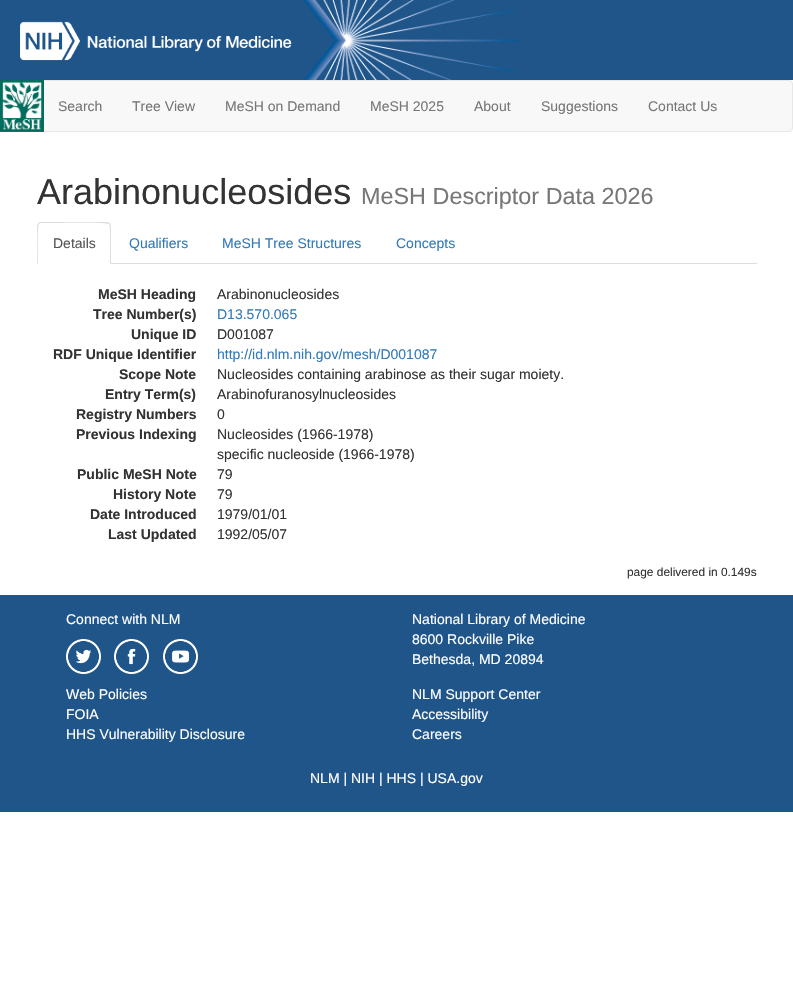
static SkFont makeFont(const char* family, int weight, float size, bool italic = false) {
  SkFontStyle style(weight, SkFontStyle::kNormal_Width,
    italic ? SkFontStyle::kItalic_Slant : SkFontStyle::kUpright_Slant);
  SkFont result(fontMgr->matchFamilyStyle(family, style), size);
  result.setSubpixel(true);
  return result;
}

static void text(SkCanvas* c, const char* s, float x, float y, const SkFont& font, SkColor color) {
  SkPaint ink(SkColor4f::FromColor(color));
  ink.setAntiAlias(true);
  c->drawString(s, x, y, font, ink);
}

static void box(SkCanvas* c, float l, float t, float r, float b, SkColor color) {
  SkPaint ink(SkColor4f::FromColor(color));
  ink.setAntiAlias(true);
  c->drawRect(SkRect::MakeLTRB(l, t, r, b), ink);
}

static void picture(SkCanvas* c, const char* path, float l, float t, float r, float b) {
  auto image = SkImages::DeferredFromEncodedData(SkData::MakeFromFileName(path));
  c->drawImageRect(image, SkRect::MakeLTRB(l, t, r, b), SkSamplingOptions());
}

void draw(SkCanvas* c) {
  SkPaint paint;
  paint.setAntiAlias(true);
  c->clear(0xffffffff);
  box(c, 0, 0, 793, 80, 0xff20558a);
  picture(c, "img_01.png", 303, 0, 519, 80);
  picture(c, "img_02.png", 20, 21, 292, 61);
  paint.setColor(0xfff8f8f8);
  c->drawRoundRect(SkRect::MakeLTRB(0.5f, 80.5f, 792.5f, 131.5f), 3.5f, 3.5f, paint);
  paint.setStyle(SkPaint::kStroke_Style);
  paint.setStrokeWidth(1);
  paint.setColor(0xffe7e7e7);
  c->drawRoundRect(SkRect::MakeLTRB(0.5f, 80.5f, 792.5f, 131.5f), 3.5f, 3.5f, paint);
  picture(c, "img_03.png", 0, 80, 44, 132);
  SkFont face1 = makeFont("Liberation Sans", 400, 14);
  text(c, "Search", 58, 111, face1, 0xff777777);
  text(c, "Tree View", 132, 111, face1, 0xff777777);
  text(c, "MeSH on Demand", 225, 111, face1, 0xff777777);
  text(c, "MeSH 2025", 370, 111, face1, 0xff777777);
  text(c, "About", 474, 111, face1, 0xff777777);
  text(c, "Suggestions", 541, 111, face1, 0xff777777);
  text(c, "Contact Us", 648, 111, face1, 0xff777777);
  SkFont face2 = makeFont("Liberation Sans", 400, 36);
  text(c, "Arabinonucleosides", 37, 204, face2, 0xff333333);
  SkFont face3 = makeFont("Liberation Sans", 400, 23.4f);
  text(c, "MeSH Descriptor Data 2026", 361, 204, face3, 0xff777777);
  box(c, 111, 263, 757, 264, 0xffdddddd);
  paint.setStyle(SkPaint::kFill_Style);
  paint.setColor(0xffdddddd);
  c->drawPath(SkPathBuilder().moveTo(41, 222).lineTo(38, 223).lineTo(39, 224).lineTo(41, 223).lineTo(52, 223).cubicTo(58, 223, 107, 222, 109, 224).lineTo(110, 223).lineTo(107, 222).close().detach(), paint);
  c->drawPath(SkPathBuilder().moveTo(111, 264).lineTo(111, 226).cubicTo(111, 225, 110, 224, 110, 223).lineTo(109, 224).cubicTo(111, 226, 110, 258, 110, 263).close().detach(), paint);
  c->drawPath(SkPathBuilder().moveTo(37, 264).lineTo(38, 263).cubicTo(38, 258, 37, 226, 39, 224).lineTo(38, 223).lineTo(37, 226).close().detach(), paint);
  text(c, "Details", 53, 248, face1, 0xff555555);
  text(c, "Qualifiers", 129, 248, face1, 0xff337ab7);
  text(c, "MeSH Tree Structures", 222, 248, face1, 0xff337ab7);
  text(c, "Concepts", 396, 248, face1, 0xff337ab7);
  SkFont face4 = makeFont("Liberation Sans", 700, 14);
  text(c, "MeSH Heading", 98, 299, face4, 0xff333333);
  text(c, "Arabinonucleosides", 217, 299, face1, 0xff333333);
  text(c, "Tree Number(s)", 93, 319, face4, 0xff333333);
  text(c, "D13.570.065", 217, 319, face1, 0xff337ab7);
  text(c, "Unique ID", 131, 339, face4, 0xff333333);
  text(c, "D001087", 217, 339, face1, 0xff333333);
  text(c, "RDF Unique Identifier", 53, 359, face4, 0xff333333);
  text(c, "http://id.nlm.nih.gov/mesh/D001087", 217, 359, face1, 0xff337ab7);
  text(c, "Scope Note", 119, 379, face4, 0xff333333);
  text(c, "Nucleosides containing arabinose as their sugar moiety.", 217, 379, face1, 0xff333333);
  text(c, "Entry Term(s)", 105, 399, face4, 0xff333333);
  text(c, "Arabinofuranosylnucleosides", 217, 399, face1, 0xff333333);
  text(c, "Registry Numbers", 76, 419, face4, 0xff333333);
  text(c, "0", 217, 419, face1, 0xff333333);
  text(c, "Previous Indexing", 76, 439, face4, 0xff333333);
  text(c, "Nucleosides (1966-1978)", 217, 439, face1, 0xff333333);
  text(c, "specific nucleoside (1966-1978)", 217, 459, face1, 0xff333333);
  text(c, "Public MeSH Note", 77, 479, face4, 0xff333333);
  text(c, "79", 217, 479, face1, 0xff333333);
  text(c, "History Note", 113, 499, face4, 0xff333333);
  text(c, "79", 217, 499, face1, 0xff333333);
  text(c, "Date Introduced", 90, 519, face4, 0xff333333);
  text(c, "1979/01/01", 217, 519, face1, 0xff333333);
  text(c, "Last Updated", 108, 539, face4, 0xff333333);
  text(c, "1992/05/07", 217, 539, face1, 0xff333333);
  SkFont face5 = makeFont("Liberation Sans", 400, 11.9f);
  text(c, "page delivered in 0.149s", 627, 576, face5, 0xff333333);
  box(c, 0, 595, 793, 812, 0xff20558a);
  text(c, "Connect with NLM", 66, 624, face1, 0xffffffff);
  picture(c, "img_04.png", 66, 639, 101, 674);
  picture(c, "img_05.png", 114, 639, 149, 674);
  picture(c, "img_06.png", 163, 639, 198, 674);
  text(c, "National Library of Medicine", 412, 624, face1, 0xffffffff);
  text(c, "8600 Rockville Pike", 412, 644, face1, 0xffffffff);
  text(c, "Bethesda, MD 20894", 412, 664, face1, 0xffffffff);
  text(c, "Web Policies", 66, 699, face1, 0xffffffff);
  text(c, "FOIA", 66, 719, face1, 0xffffffff);
  text(c, "HHS Vulnerability Disclosure", 66, 739, face1, 0xffffffff);
  text(c, "NLM Support Center", 412, 699, face1, 0xffffffff);
  text(c, "Accessibility", 412, 719, face1, 0xffffffff);
  text(c, "Careers", 412, 739, face1, 0xffffffff);
  text(c, "NLM | NIH | HHS | USA.gov", 310, 783, face1, 0xffffffff);
}
